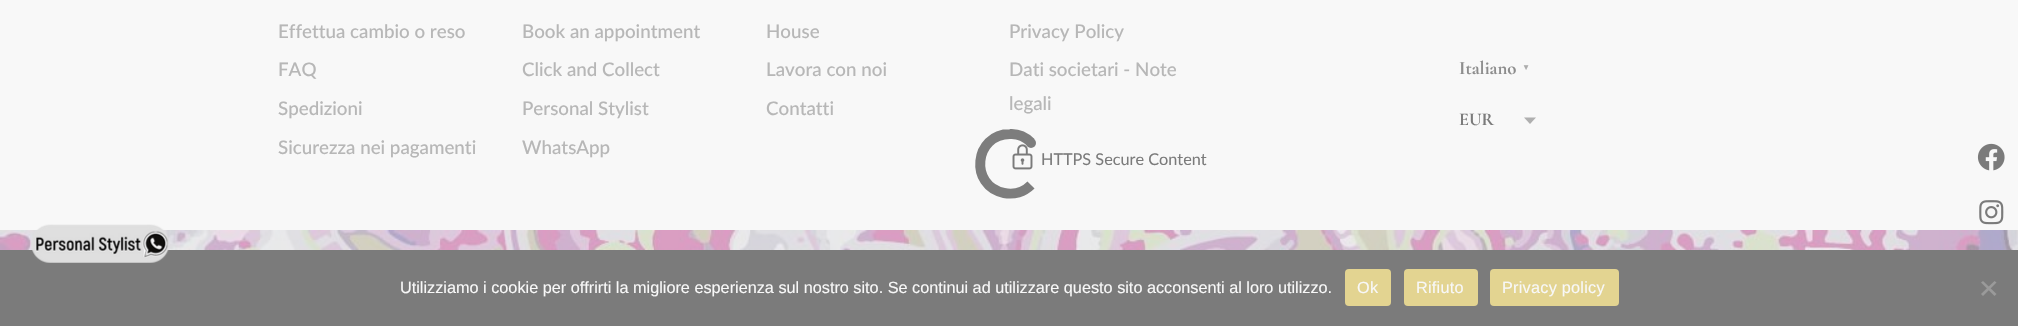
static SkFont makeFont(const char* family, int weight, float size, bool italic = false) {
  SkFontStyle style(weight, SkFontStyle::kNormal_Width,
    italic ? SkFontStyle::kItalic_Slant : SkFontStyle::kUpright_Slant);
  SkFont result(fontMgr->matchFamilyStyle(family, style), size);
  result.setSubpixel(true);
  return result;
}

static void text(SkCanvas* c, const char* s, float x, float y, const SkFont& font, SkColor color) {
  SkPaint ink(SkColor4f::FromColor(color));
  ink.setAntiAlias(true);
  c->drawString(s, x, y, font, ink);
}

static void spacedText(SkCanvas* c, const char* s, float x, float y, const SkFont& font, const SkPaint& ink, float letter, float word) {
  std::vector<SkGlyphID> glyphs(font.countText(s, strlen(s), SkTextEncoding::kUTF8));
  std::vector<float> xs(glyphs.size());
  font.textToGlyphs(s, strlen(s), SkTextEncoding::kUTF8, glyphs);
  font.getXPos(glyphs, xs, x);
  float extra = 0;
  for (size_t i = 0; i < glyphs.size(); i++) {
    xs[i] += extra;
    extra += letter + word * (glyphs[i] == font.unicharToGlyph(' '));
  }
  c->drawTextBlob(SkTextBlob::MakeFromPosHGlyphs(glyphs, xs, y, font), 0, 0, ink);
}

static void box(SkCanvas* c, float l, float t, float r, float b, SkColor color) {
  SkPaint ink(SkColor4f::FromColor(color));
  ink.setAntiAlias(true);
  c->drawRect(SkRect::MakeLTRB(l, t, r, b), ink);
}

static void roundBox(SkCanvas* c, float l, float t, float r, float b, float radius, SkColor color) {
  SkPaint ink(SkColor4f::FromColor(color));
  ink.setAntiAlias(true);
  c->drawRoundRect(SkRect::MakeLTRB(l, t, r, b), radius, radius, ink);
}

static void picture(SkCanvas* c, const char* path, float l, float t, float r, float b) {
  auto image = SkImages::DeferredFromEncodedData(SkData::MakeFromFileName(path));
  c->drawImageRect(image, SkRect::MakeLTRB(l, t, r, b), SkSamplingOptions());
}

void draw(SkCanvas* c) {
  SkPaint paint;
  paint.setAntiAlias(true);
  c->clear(0xfff8f8f8);
  SkFont face1 = makeFont("Lato", 500, 18.75f);
  text(c, "Effettua cambio o reso", 278, 38, face1, 0xffb7b7b7);
  text(c, "FAQ", 278, 76, face1, 0xffb7b7b7);
  text(c, "Spedizioni", 278, 115, face1, 0xffb7b7b7);
  text(c, "Sicurezza nei pagamenti", 278, 154, face1, 0xffb7b7b7);
  text(c, "Book an appointment", 522, 38, face1, 0xffb7b7b7);
  text(c, "Click and Collect", 522, 76, face1, 0xffb7b7b7);
  text(c, "Personal Stylist", 522, 115, face1, 0xffb7b7b7);
  text(c, "WhatsApp", 522, 154, face1, 0xffb7b7b7);
  text(c, "House", 766, 38, face1, 0xffb7b7b7);
  text(c, "Lavora con noi", 766, 76, face1, 0xffb7b7b7);
  text(c, "Contatti", 766, 115, face1, 0xffb7b7b7);
  text(c, "Privacy Policy", 1009, 38, face1, 0xffb7b7b7);
  text(c, "Dati societari - Note", 1009, 76, face1, 0xffb7b7b7);
  text(c, "legali", 1009, 110, face1, 0xffb7b7b7);
  picture(c, "img_01.png", 1012, 144, 1033, 170);
  SkFont face2 = makeFont("Lato", 400, 16.25f);
  text(c, "HTTPS Secure Content", 1041, 165, face2, 0xff7b7b7b);
  SkFont face3 = makeFont("Cormorant Garamond", 700, 18.75f);
  text(c, "Italiano", 1459, 74, face3, 0xff8d8d8d);
  SkFont face4 = makeFont("Cormorant Garamond", 700, 10);
  text(c, "▼", 1523, 70, face4, 0xffadadad);
  SkFont face5 = makeFont("Cormorant Garamond", 700, 18);
  text(c, "EUR", 1459, 125, face5, 0xff7b7b7b);
  paint.setColor(0xffafafaf);
  c->drawPath(SkPathBuilder().moveTo(1524, 117.5f).lineTo(1536, 117.5f).lineTo(1530, 124).close().detach(), paint);
  picture(c, "img_02.png", 0, 230, 2018, 250);
  picture(c, "img_03.png", 1977, 143, 2005, 171);
  picture(c, "img_04.png", 1979, 200, 2004, 225);
  paint.setStyle(SkPaint::kStroke_Style);
  paint.setStrokeWidth(10);
  paint.setColor(0xff7d7d7d);
  c->drawPath(SkPathBuilder().moveTo(1031, 185).cubicTo(1024, 192, 1014, 195, 1004, 193).cubicTo(969, 186, 974, 134, 1010, 134).cubicTo(1018, 133.5f, 1025.5f, 137, 1031, 142.5f).detach(), paint);
  paint.setStyle(SkPaint::kFill_Style);
  c->drawCircle(1031, 143, 5, paint);
  box(c, 0, 250, 2018, 326, 0xff7b7b7b);
  picture(c, "img_05.png", 31, 224, 169, 263);
  SkFont face6 = makeFont("Liberation Sans", 400, 16.25f);
  text(c, "Utilizziamo i cookie per offrirti la migliore esperienza sul nostro sito. Se continui ad utilizzare questo sito acconsenti al loro utilizzo.", 400, 293, face6, 0xfff8f8f8);
  roundBox(c, 1345, 269, 1391, 306, 4, 0xffe3d491);
  paint.setColor(0xfff8f8f8);
  spacedText(c, "Ok", 1357, 293, face6, paint, 0.25f, 0);
  roundBox(c, 1404, 269, 1478, 306, 4, 0xffe3d491);
  spacedText(c, "Rifiuto", 1416, 293, face6, paint, 0.25f, 0);
  roundBox(c, 1490, 269, 1619, 306, 4, 0xffe3d491);
  spacedText(c, "Privacy policy", 1502, 293, face6, paint, 0.25f, 0);
  paint.setColor(0xff9a9a9a);
  c->drawPath(SkPathBuilder().moveTo(1994.5f, 281).lineTo(1996.5f, 282.5f).lineTo(1983, 296).lineTo(1981, 294).close().detach(), paint);
  c->drawPath(SkPathBuilder().moveTo(1981, 282.5f).lineTo(1983, 281).lineTo(1996.5f, 294).lineTo(1994.5f, 296).close().detach(), paint);
}
